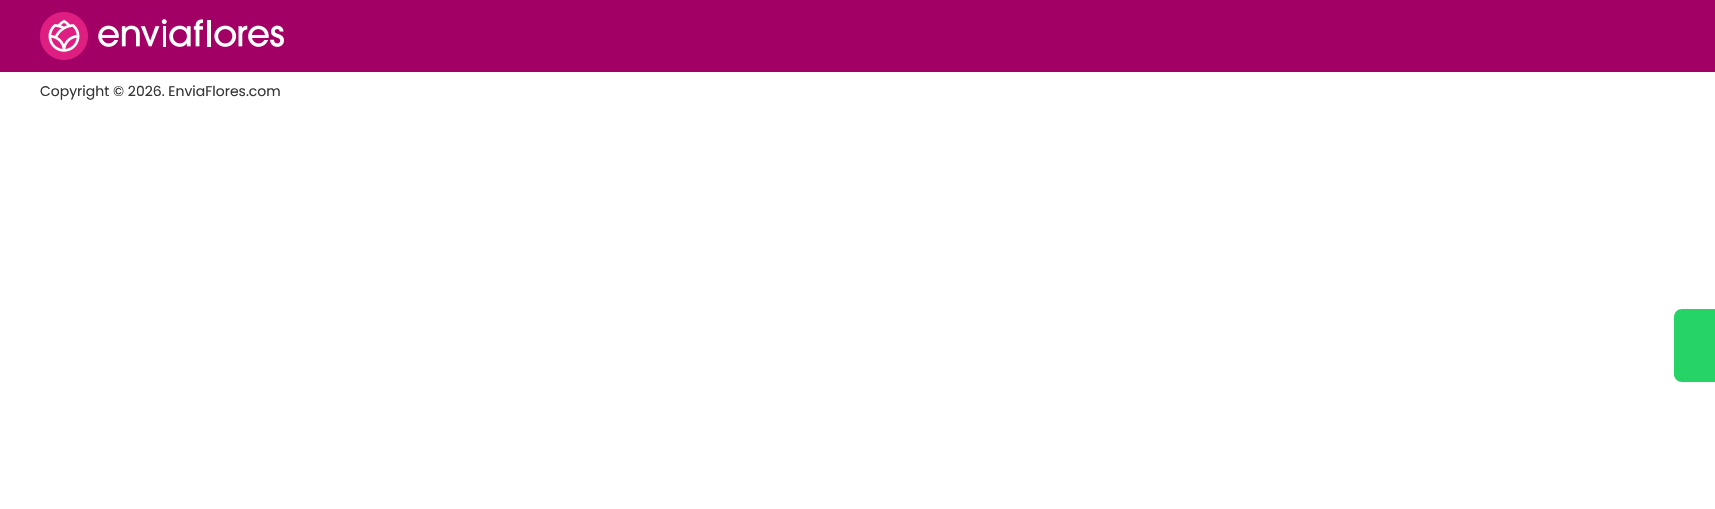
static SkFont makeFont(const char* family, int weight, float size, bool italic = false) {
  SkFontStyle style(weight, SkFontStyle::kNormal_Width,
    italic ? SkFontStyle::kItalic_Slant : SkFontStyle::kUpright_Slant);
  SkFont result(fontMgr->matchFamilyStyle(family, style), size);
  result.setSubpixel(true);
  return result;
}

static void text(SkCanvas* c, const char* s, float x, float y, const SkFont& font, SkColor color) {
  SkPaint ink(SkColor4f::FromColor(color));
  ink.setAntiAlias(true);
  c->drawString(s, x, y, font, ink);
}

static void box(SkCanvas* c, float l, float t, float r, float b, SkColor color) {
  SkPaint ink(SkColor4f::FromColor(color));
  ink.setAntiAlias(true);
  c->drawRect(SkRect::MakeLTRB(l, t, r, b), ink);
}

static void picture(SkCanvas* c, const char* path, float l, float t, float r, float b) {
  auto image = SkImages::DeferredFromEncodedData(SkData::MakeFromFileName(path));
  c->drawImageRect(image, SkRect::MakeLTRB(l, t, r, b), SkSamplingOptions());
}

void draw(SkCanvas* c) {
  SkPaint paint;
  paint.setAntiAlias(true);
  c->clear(0xffffffff);
  box(c, 0, 0, 1715, 72, 0xffa20065);
  picture(c, "img_01.png", 40, 12, 284, 60);
  SkFont face1 = makeFont("Poppins", 400, 14);
  text(c, "Copyright © 2026. EnviaFlores.com", 40, 96, face1, 0xff353535);
  paint.setColor(0xff25d366);
  c->drawPath(SkPathBuilder().moveTo(1682, 309).lineTo(1715, 309).lineTo(1715, 382).lineTo(1682, 382).cubicTo(1677.5f, 382, 1674, 378.5f, 1674, 374).lineTo(1674, 317).cubicTo(1674, 312.5f, 1677.5f, 309, 1682, 309).close().detach(), paint);
}
